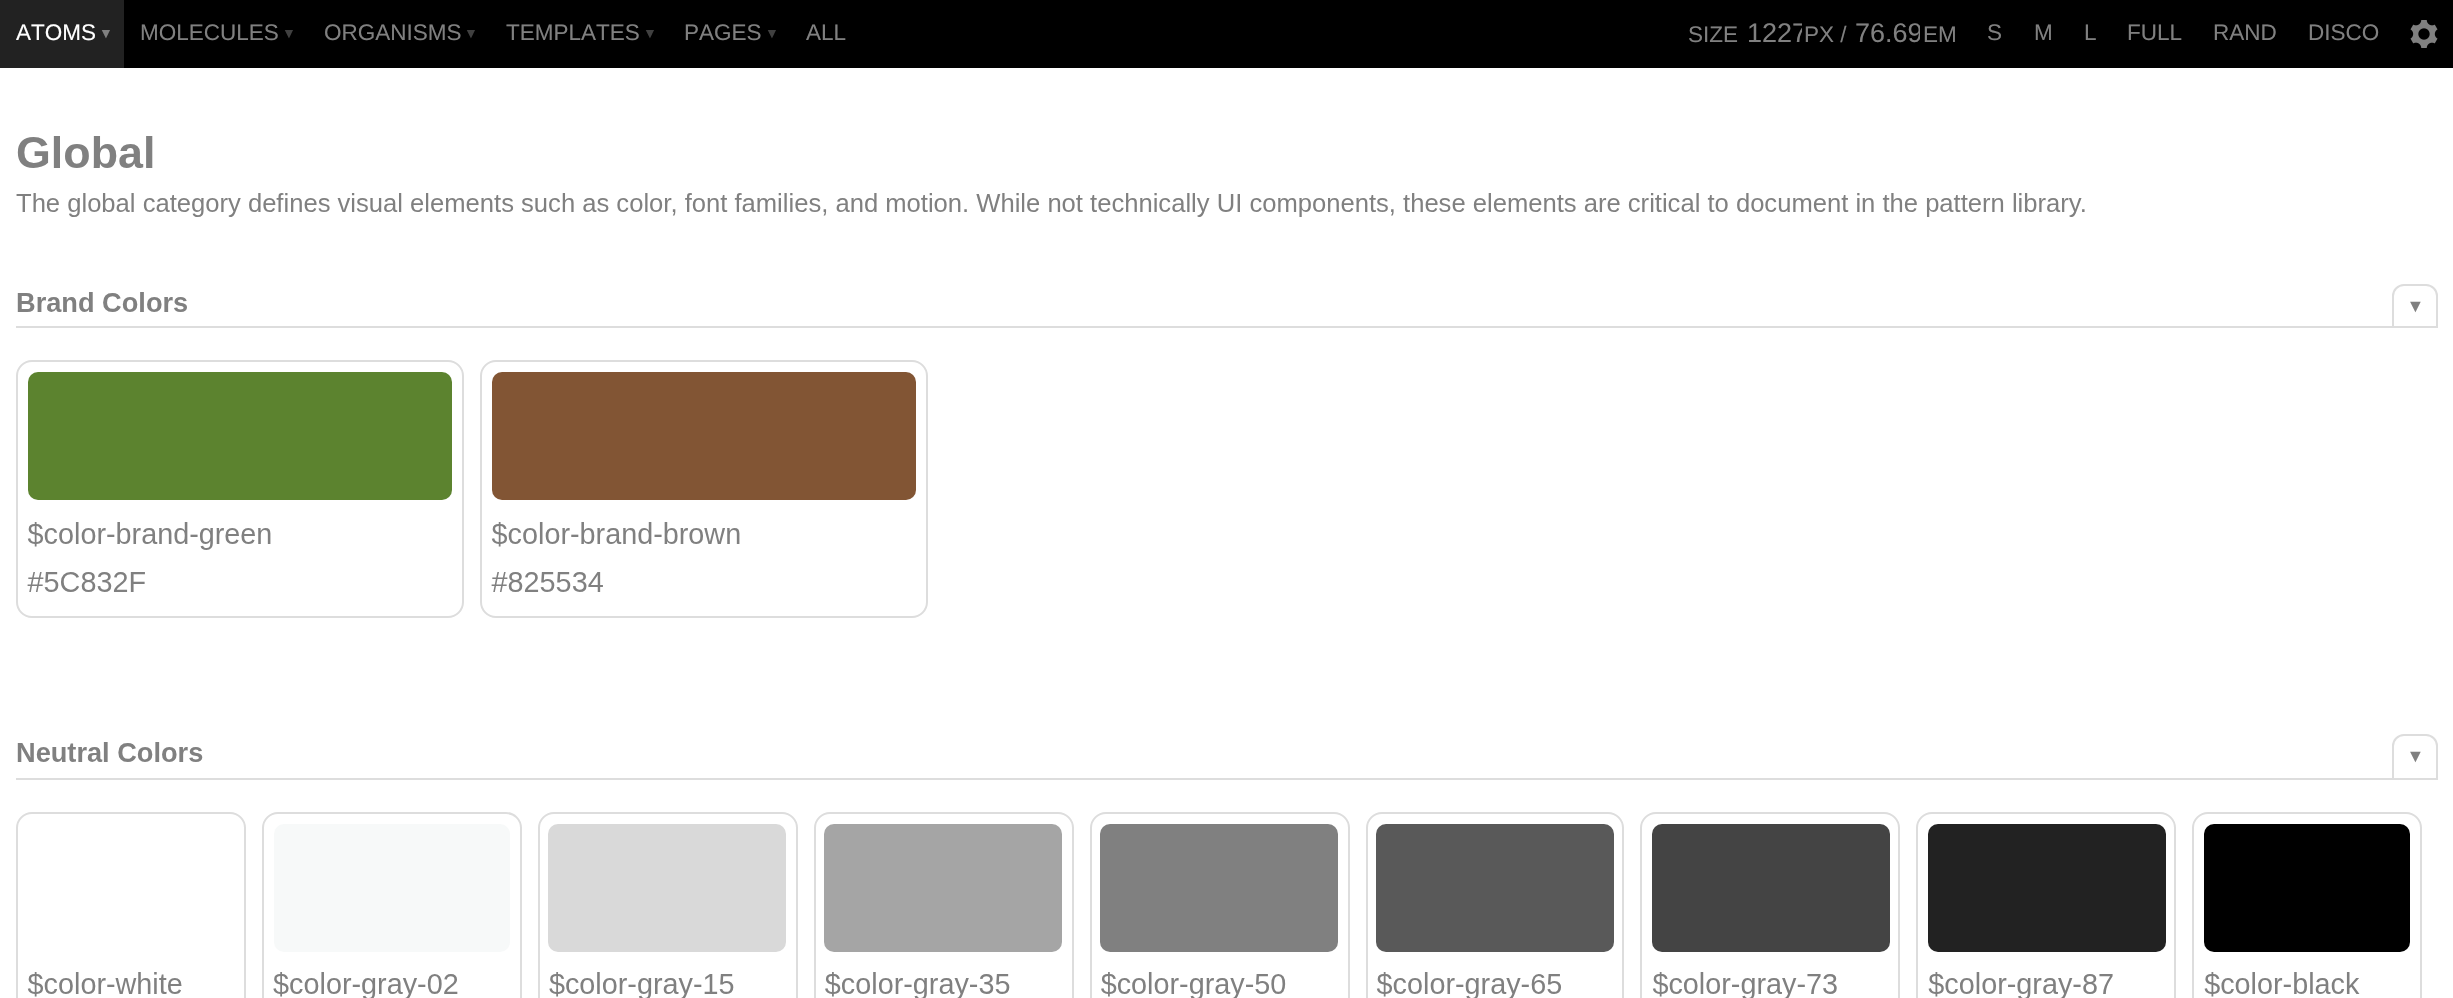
static SkFont makeFont(const char* family, int weight, float size, bool italic = false) {
  SkFontStyle style(weight, SkFontStyle::kNormal_Width,
    italic ? SkFontStyle::kItalic_Slant : SkFontStyle::kUpright_Slant);
  SkFont result(fontMgr->matchFamilyStyle(family, style), size);
  result.setSubpixel(true);
  return result;
}

static void text(SkCanvas* c, const char* s, float x, float y, const SkFont& font, SkColor color) {
  SkPaint ink(SkColor4f::FromColor(color));
  ink.setAntiAlias(true);
  c->drawString(s, x, y, font, ink);
}

static void box(SkCanvas* c, float l, float t, float r, float b, SkColor color) {
  SkPaint ink(SkColor4f::FromColor(color));
  ink.setAntiAlias(true);
  c->drawRect(SkRect::MakeLTRB(l, t, r, b), ink);
}

static void picture(SkCanvas* c, const char* path, float l, float t, float r, float b) {
  auto image = SkImages::DeferredFromEncodedData(SkData::MakeFromFileName(path));
  c->drawImageRect(image, SkRect::MakeLTRB(l, t, r, b), SkSamplingOptions());
}

void draw(SkCanvas* c) {
  SkPaint paint;
  paint.setAntiAlias(true);
  c->clear(0xffffffff);
  box(c, 124, 0, 2453, 68, 0xff000000);
  box(c, 0, 0, 124, 68, 0xff222222);
  SkFont face1 = makeFont("Liberation Sans", 400, 22.5f);
  text(c, "ATOMS", 16, 40, face1, 0xffffffff);
  SkFont face2 = makeFont("Liberation Sans", 400, 14);
  text(c, "▼", 99, 38, face2, 0xff808080);
  text(c, "MOLECULES", 140, 40, face1, 0xff808080);
  text(c, "▼", 282, 38, face2, 0xff404040);
  text(c, "ORGANISMS", 324, 40, face1, 0xff808080);
  text(c, "▼", 464, 38, face2, 0xff404040);
  text(c, "TEMPLATES", 506, 40, face1, 0xff808080);
  text(c, "▼", 643, 38, face2, 0xff404040);
  text(c, "PAGES", 684, 40, face1, 0xff808080);
  text(c, "▼", 765, 38, face2, 0xff404040);
  text(c, "ALL", 806, 40, face1, 0xff808080);
  text(c, "SIZE", 1688, 42, face1, 0xff808080);
  c->save();
  c->clipRect(SkRect::MakeLTRB(1746, 18, 1802, 48));
  SkFont face3 = makeFont("Liberation Sans", 400, 27);
  text(c, "1227", 1747, 42, face3, 0xff808080);
  c->restore();
  text(c, "PX /", 1804, 42, face1, 0xff808080);
  c->save();
  c->clipRect(SkRect::MakeLTRB(1856, 18, 1920, 48));
  text(c, "76.69", 1855, 42, face3, 0xff808080);
  c->restore();
  text(c, "EM", 1923, 42, face1, 0xff808080);
  text(c, "S", 1987, 40, face1, 0xff808080);
  text(c, "M", 2034, 40, face1, 0xff808080);
  text(c, "L", 2084, 40, face1, 0xff808080);
  text(c, "FULL", 2127, 40, face1, 0xff808080);
  text(c, "RAND", 2213, 40, face1, 0xff808080);
  text(c, "DISCO", 2308, 40, face1, 0xff808080);
  picture(c, "img_01.png", 2410, 20, 2438, 48);
  picture(c, "img_02.png", 16, 136, 2438, 998);
}
